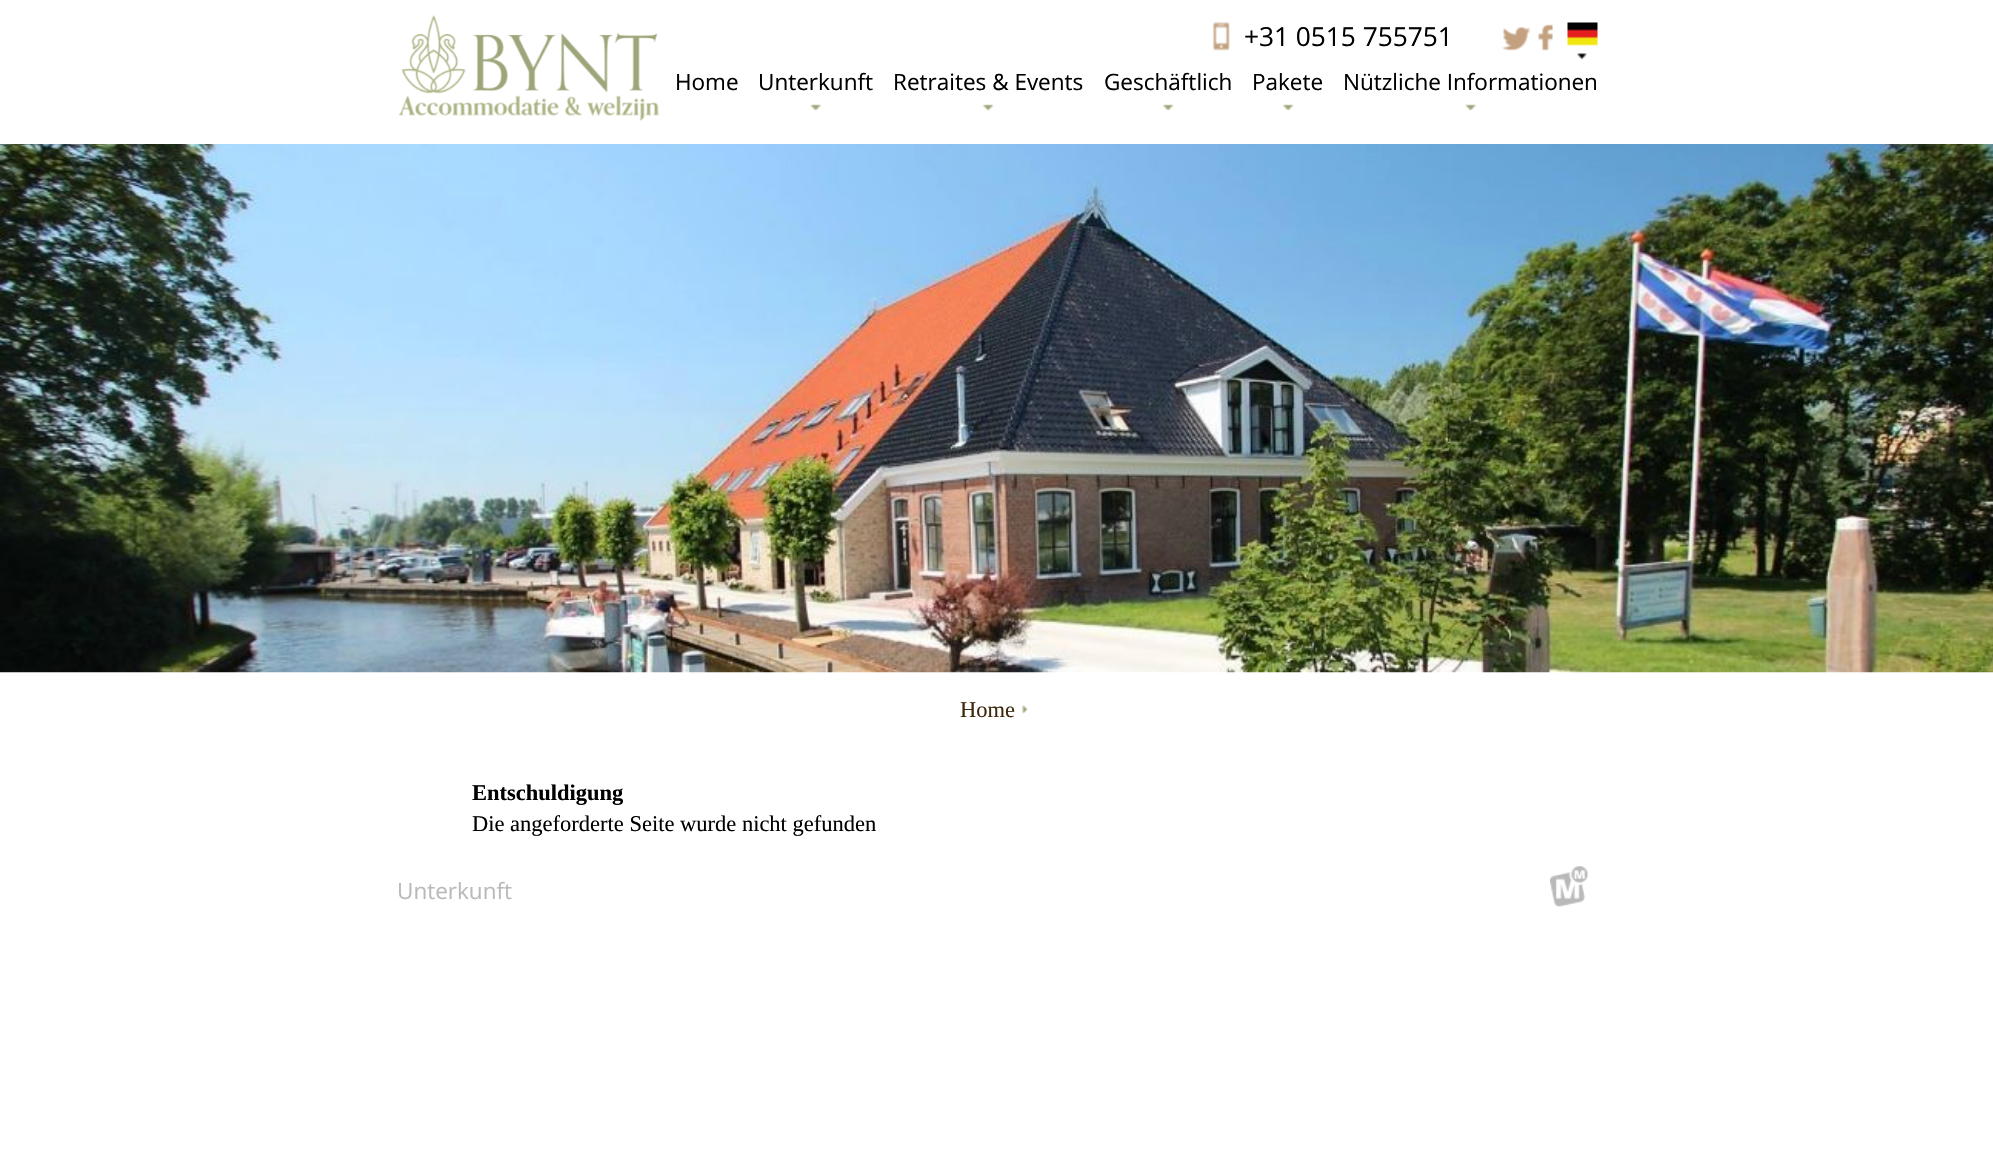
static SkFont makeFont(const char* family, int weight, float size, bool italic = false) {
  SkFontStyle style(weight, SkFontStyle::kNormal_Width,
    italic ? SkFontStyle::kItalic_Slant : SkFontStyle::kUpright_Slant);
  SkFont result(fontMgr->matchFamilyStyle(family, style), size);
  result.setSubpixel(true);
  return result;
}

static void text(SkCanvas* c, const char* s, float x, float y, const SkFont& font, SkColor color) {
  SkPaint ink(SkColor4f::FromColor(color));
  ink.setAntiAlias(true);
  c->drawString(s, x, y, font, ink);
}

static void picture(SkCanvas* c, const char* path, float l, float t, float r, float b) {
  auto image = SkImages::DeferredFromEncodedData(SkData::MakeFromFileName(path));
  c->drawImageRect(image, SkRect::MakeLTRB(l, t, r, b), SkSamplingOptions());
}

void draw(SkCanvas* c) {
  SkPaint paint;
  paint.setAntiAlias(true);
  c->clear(0xffffffff);
  picture(c, "img_01.png", 398, 15, 659, 121);
  picture(c, "img_02.png", 1212, 22, 1230, 51);
  SkFont face1 = makeFont("Open Sans", 400, 26.25f);
  text(c, "+31 0515 755751", 1244, 46, face1, 0xff000000);
  picture(c, "img_03.png", 1502, 26, 1531, 51);
  picture(c, "img_04.png", 1538, 24, 1553, 51);
  picture(c, "img_05.png", 1567, 22, 1598, 46);
  picture(c, "img_06.png", 1577, 53, 1587, 60);
  SkFont face2 = makeFont("Open Sans", 400, 22.5f);
  text(c, "Home", 675, 90, face2, 0xff000000);
  text(c, "Unterkunft", 758, 90, face2, 0xff000000);
  picture(c, "img_07.png", 810, 104, 822, 111);
  text(c, "Retraites & Events", 893, 90, face2, 0xff000000);
  picture(c, "img_08.png", 982, 104, 994, 111);
  text(c, "Geschäftlich", 1104, 90, face2, 0xff000000);
  picture(c, "img_09.png", 1162, 104, 1174, 111);
  text(c, "Pakete", 1252, 90, face2, 0xff000000);
  picture(c, "img_08.png", 1282, 104, 1294, 111);
  text(c, "Nützliche Informationen", 1343, 90, face2, 0xff000000);
  picture(c, "img_10.png", 1465, 104, 1477, 111);
  picture(c, "img_11.png", 0, 144, 1993, 673);
  SkFont face3 = makeFont("Liberation Serif", 400, 22.5f);
  text(c, "Home", 960, 717, face3, 0xff3c290b);
  picture(c, "img_12.png", 1022, 705, 1028, 714);
  SkFont face4 = makeFont("Liberation Serif", 700, 22.5f);
  text(c, "Entschuldigung", 472, 800, face4, 0xff000000);
  text(c, "Die angeforderte Seite wurde nicht gefunden", 472, 831, face3, 0xff000000);
  text(c, "Unterkunft", 397, 899, face2, 0xffbababa);
  picture(c, "img_13.png", 1550, 866, 1588, 907);
}
